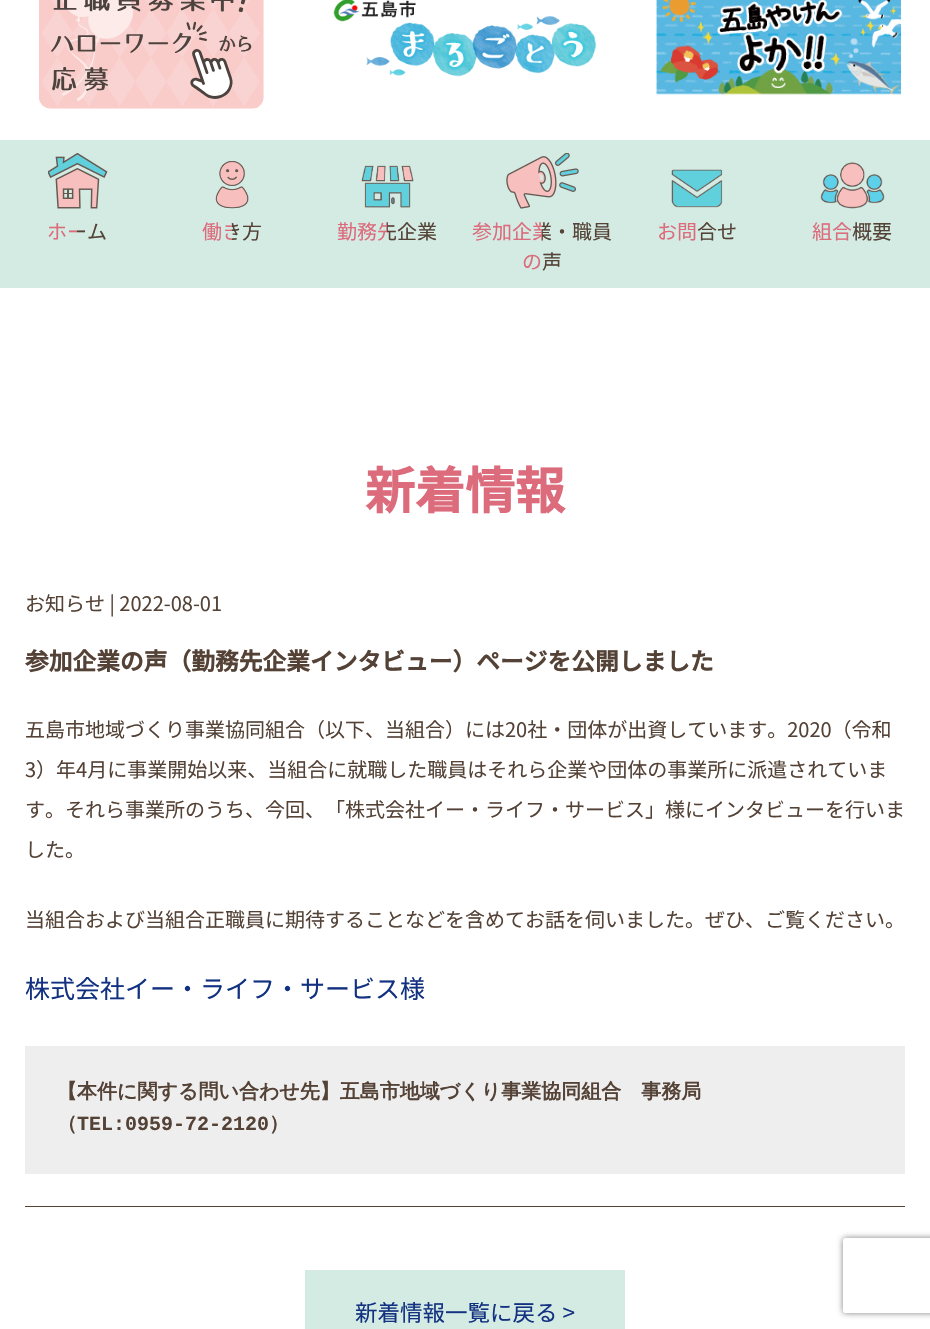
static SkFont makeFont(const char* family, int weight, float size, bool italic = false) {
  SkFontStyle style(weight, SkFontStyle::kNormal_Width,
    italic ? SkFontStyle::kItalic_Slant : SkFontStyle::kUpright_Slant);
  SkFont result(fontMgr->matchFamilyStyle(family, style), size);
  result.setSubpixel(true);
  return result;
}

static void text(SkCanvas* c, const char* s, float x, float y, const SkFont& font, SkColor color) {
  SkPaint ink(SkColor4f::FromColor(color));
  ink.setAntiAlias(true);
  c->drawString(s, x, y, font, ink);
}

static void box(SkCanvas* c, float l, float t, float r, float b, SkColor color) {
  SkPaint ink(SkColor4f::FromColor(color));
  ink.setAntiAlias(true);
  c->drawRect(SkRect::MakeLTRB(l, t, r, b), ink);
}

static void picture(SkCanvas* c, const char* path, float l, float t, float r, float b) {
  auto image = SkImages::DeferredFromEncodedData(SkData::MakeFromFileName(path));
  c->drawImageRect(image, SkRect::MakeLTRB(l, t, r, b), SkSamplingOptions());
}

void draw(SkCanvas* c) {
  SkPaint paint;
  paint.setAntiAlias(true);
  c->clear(0xffffffff);
  picture(c, "img_01.png", 39, 0, 264, 109);
  picture(c, "img_02.png", 333, 0, 597, 77);
  picture(c, "img_03.png", 656, 0, 901, 95);
  box(c, 0, 140, 930, 288, 0xffd4ebe3);
  picture(c, "img_04.png", 48, 153, 108, 209);
  SkFont face1 = makeFont("Noto Sans JP", 400, 20);
  {
    const SkColor colors[] = {0xffdc6b7c, 0xffdc6b7c, 0xff544236};
    const float stops[] = {0, 0.5f, 0.5f};
    const SkPoint ends[] = {{0, 199}, {155, 199}};
    paint.setShader(SkGradientShader::MakeLinear(ends, colors, stops, 3, SkTileMode::kClamp));
    paint.setAlpha(255);
  }
  c->drawString("ホーム", 47, 239, face1, paint);
  picture(c, "img_05.png", 215, 161, 249, 209);
  {
    const SkColor colors[] = {0xffdc6b7c, 0xffdc6b7c, 0xff544236};
    const float stops[] = {0, 0.5f, 0.5f};
    const SkPoint ends[] = {{155, 199}, {310, 199}};
    paint.setShader(SkGradientShader::MakeLinear(ends, colors, stops, 3, SkTileMode::kClamp));
    paint.setAlpha(255);
  }
  c->drawString("働き方", 202, 239, face1, paint);
  picture(c, "img_06.png", 361, 165, 414, 208);
  {
    const SkColor colors[] = {0xffdc6b7c, 0xffdc6b7c, 0xff544236};
    const float stops[] = {0, 0.5f, 0.5f};
    const SkPoint ends[] = {{310, 199}, {465, 199}};
    paint.setShader(SkGradientShader::MakeLinear(ends, colors, stops, 3, SkTileMode::kClamp));
    paint.setAlpha(255);
  }
  c->drawString("勤務先企業", 337, 239, face1, paint);
  picture(c, "img_07.png", 506, 153, 579, 209);
  {
    const SkColor colors[] = {0xffdc6b7c, 0xffdc6b7c, 0xff544236};
    const float stops[] = {0, 0.5f, 0.5f};
    const SkPoint ends[] = {{465, 214}, {620, 214}};
    paint.setShader(SkGradientShader::MakeLinear(ends, colors, stops, 3, SkTileMode::kClamp));
    paint.setAlpha(255);
  }
  c->drawString("参加企業・職員", 472, 239, face1, paint);
  c->drawString("の声", 522, 269, face1, paint);
  picture(c, "img_08.png", 671, 169, 723, 208);
  {
    const SkColor colors[] = {0xffdc6b7c, 0xffdc6b7c, 0xff544236};
    const float stops[] = {0, 0.5f, 0.5f};
    const SkPoint ends[] = {{620, 199}, {775, 199}};
    paint.setShader(SkGradientShader::MakeLinear(ends, colors, stops, 3, SkTileMode::kClamp));
    paint.setAlpha(255);
  }
  c->drawString("お問合せ", 657, 239, face1, paint);
  picture(c, "img_09.png", 820, 162, 885, 209);
  {
    const SkColor colors[] = {0xffdc6b7c, 0xffdc6b7c, 0xff544236};
    const float stops[] = {0, 0.5f, 0.5f};
    const SkPoint ends[] = {{775, 199}, {930, 199}};
    paint.setShader(SkGradientShader::MakeLinear(ends, colors, stops, 3, SkTileMode::kClamp));
    paint.setAlpha(255);
  }
  c->drawString("組合概要", 812, 239, face1, paint);
  SkFont face2 = makeFont("Noto Sans JP", 700, 50);
  text(c, "新着情報", 365, 509, face2, 0xffdc6b7c);
  box(c, 25, 1206, 905, 1207, 0xff544236);
  text(c, "お知らせ | 2022-08-01", 25, 611, face1, 0xff544236);
  SkFont face3 = makeFont("Noto Sans JP", 700, 23.75f);
  text(c, "参加企業の声（勤務先企業インタビュー）ページを公開しました", 25, 670, face3, 0xff544236);
  text(c, "五島市地域づくり事業協同組合（以下、当組合）には20社・団体が出資しています。2020（令和", 25, 737, face1, 0xff544236);
  text(c, "3）年4月に事業開始以来、当組合に就職した職員はそれら企業や団体の事業所に派遣されていま", 25, 777, face1, 0xff544236);
  text(c, "す。それら事業所のうち、今回、「株式会社イー・ライフ・サービス」様にインタビューを行いま", 25, 817, face1, 0xff544236);
  text(c, "した。", 25, 857, face1, 0xff544236);
  text(c, "当組合および当組合正職員に期待することなどを含めてお話を伺いました。ぜひ、ご覧ください。", 25, 927, face1, 0xff544236);
  SkFont face4 = makeFont("Noto Sans JP", 400, 25);
  text(c, "株式会社イー・ライフ・サービス様", 25, 998, face4, 0xff123181);
  box(c, 25, 1046, 905, 1174, 0xffeeeeee);
  SkFont face5 = makeFont("WenQuanYi Zen Hei", 700, 20);
  text(c, "【本件に関する問い合わせ先】五島市地域づくり事業協同組合　事務局", 57, 1098, face5, 0xff544236);
  text(c, "（", 57, 1130, face5, 0xff544236);
  SkFont face6 = makeFont("Liberation Mono", 700, 20);
  text(c, "TEL:0959-72-2120", 77, 1130, face6, 0xff544236);
  text(c, "）", 269, 1130, face5, 0xff544236);
  box(c, 305, 1270, 625, 1329, 0xffd4ebe3);
  SkFont face7 = makeFont("Noto Sans JP", 400, 22.5f);
  text(c, "新着情報一覧に戻る >", 355, 1321, face7, 0xff123181);
  c->save();
  c->clipPath(SkPathBuilder(SkPathFillType::kEvenOdd).moveTo(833, 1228).lineTo(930, 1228).lineTo(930, 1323).lineTo(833, 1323).close().moveTo(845.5f, 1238).lineTo(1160.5f, 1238).cubicTo(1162, 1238, 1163, 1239, 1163, 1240.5f).lineTo(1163, 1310.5f).cubicTo(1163, 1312, 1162, 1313, 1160.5f, 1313).lineTo(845.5f, 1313).cubicTo(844, 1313, 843, 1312, 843, 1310.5f).lineTo(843, 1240.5f).cubicTo(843, 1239, 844, 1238, 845.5f, 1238).close().detach(), true);
  paint.setShader(nullptr);
  paint.setColor(0xff808080);
  paint.setMaskFilter(SkMaskFilter::MakeBlur(kNormal_SkBlurStyle, 3));
  c->drawRoundRect(SkRect::MakeLTRB(843, 1238, 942, 1313), 2.5f, 2.5f, paint);
  paint.setMaskFilter(nullptr);
  c->restore();
}
